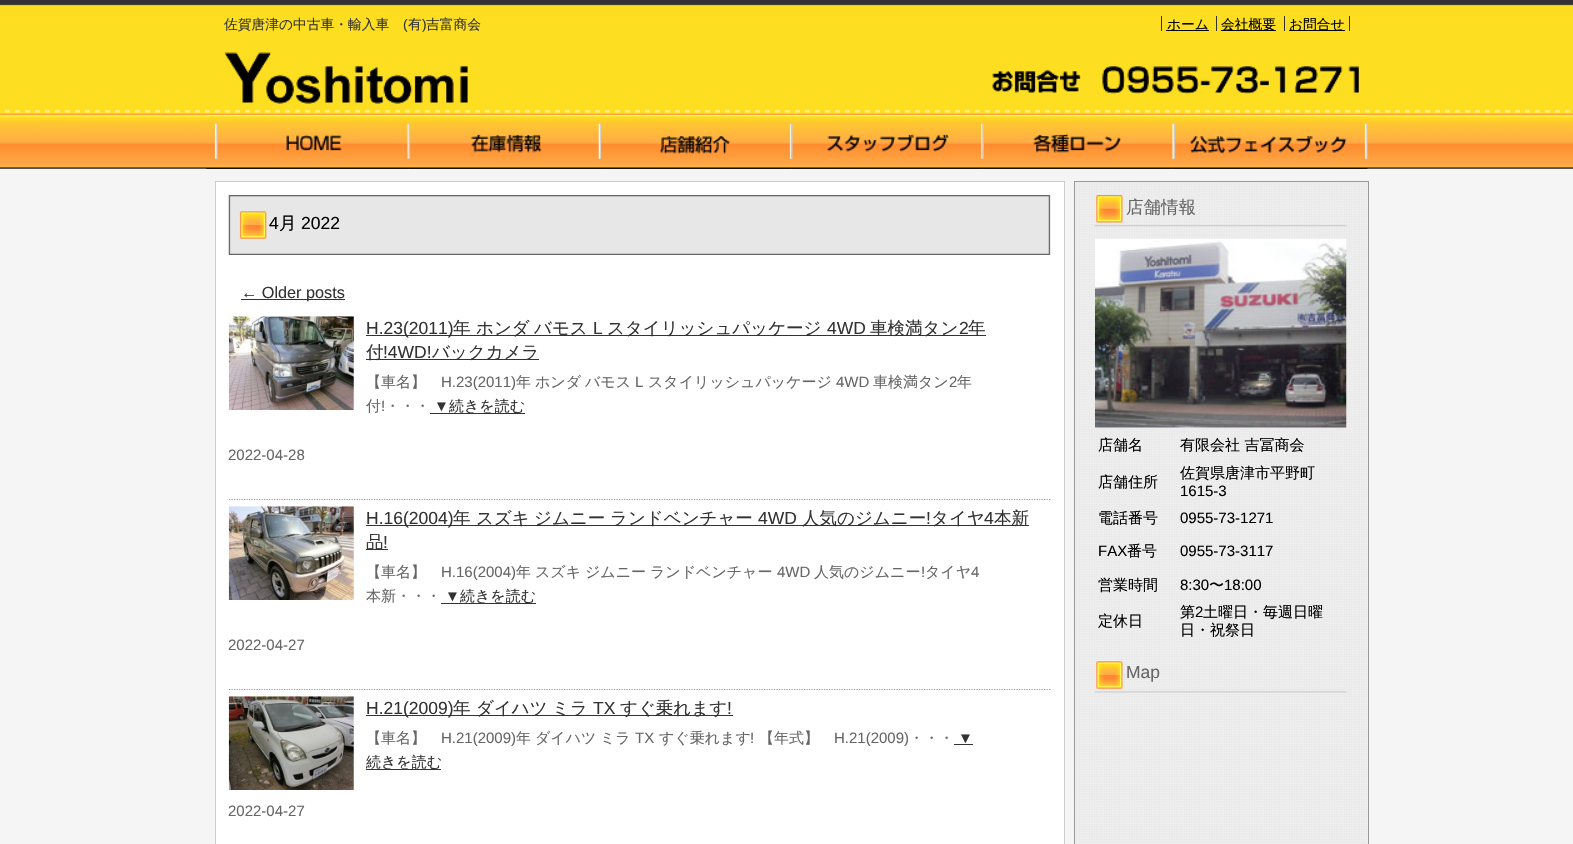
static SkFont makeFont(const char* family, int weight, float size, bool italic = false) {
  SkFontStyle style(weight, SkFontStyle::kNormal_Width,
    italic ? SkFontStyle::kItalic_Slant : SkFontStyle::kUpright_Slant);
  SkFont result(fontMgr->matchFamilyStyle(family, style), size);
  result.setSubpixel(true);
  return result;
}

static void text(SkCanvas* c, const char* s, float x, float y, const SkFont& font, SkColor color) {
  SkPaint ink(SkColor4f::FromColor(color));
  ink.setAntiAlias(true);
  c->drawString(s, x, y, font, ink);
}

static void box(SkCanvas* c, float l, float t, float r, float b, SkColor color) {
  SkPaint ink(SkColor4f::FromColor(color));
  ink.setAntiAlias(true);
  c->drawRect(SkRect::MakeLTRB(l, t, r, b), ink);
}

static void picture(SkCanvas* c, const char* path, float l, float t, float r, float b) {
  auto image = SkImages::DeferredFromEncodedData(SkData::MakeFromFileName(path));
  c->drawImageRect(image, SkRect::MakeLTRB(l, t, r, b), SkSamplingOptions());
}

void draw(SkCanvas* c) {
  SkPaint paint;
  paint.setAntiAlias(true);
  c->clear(0xfff5f5f5);
  picture(c, "img_01.png", 0, 0, 1573, 169);
  SkFont face1 = makeFont("WenQuanYi Zen Hei", 500, 13.75f);
  text(c, "佐賀唐津の中古車・輸入車", 224, 29, face1, 0xff333333);
  SkFont face2 = makeFont("Liberation Sans", 400, 13.75f);
  text(c, "(", 403, 29, face2, 0xff333333);
  text(c, "有", 408, 29, face1, 0xff333333);
  text(c, ")", 422, 29, face2, 0xff333333);
  text(c, "吉富商会", 426, 29, face1, 0xff333333);
  box(c, 1166, 30, 1209, 31, 0xff000000);
  text(c, "ホーム", 1167, 29, face1, 0xff000000);
  box(c, 1161, 16, 1162, 31, 0xff333333);
  box(c, 1221, 30, 1276, 31, 0xff000000);
  text(c, "会社概要", 1221, 29, face1, 0xff000000);
  box(c, 1216, 16, 1217, 31, 0xff333333);
  box(c, 1289, 30, 1345, 31, 0xff000000);
  text(c, "お問合せ", 1289, 29, face1, 0xff000000);
  box(c, 1349, 16, 1350, 31, 0xff333333);
  box(c, 1284, 16, 1285, 31, 0xff333333);
  picture(c, "img_02.png", 224, 52, 468, 104);
  picture(c, "img_03.png", 992, 66, 1359, 94);
  picture(c, "img_04.png", 206, 115, 409, 169);
  picture(c, "img_05.png", 408, 115, 602, 169);
  picture(c, "img_06.png", 601, 115, 792, 169);
  picture(c, "img_07.png", 791, 115, 983, 169);
  picture(c, "img_08.png", 982, 115, 1173, 169);
  picture(c, "img_09.png", 1172, 115, 1368, 169);
  paint.setColor(0xffffffff);
  c->drawRect(SkRect::MakeLTRB(215.5f, 181.5f, 1064.5f, 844.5f), paint);
  paint.setStyle(SkPaint::kStroke_Style);
  paint.setStrokeWidth(1);
  paint.setColor(0xffcccccc);
  c->drawRect(SkRect::MakeLTRB(215.5f, 181.5f, 1064.5f, 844.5f), paint);
  picture(c, "img_10.png", 228, 195, 1051, 255);
  SkFont face3 = makeFont("Liberation Sans", 400, 17.5f);
  text(c, "4", 269, 229, face3, 0xff000000);
  SkFont face4 = makeFont("WenQuanYi Zen Hei", 500, 17.5f);
  text(c, "月", 279, 229, face4, 0xff000000);
  text(c, "2022", 301, 229, face3, 0xff000000);
  box(c, 241, 299, 345, 300, 0xff333333);
  SkFont face5 = makeFont("Liberation Sans", 400, 16.25f);
  text(c, "← Older posts", 241, 298, face5, 0xff333333);
  paint.setStrokeWidth(1.2f);
  paint.setColor(0xff999999);
  paint.setPathEffect(SkDashPathEffect::Make({{1.25f, 1.25f}}, 0));
  c->drawPath(SkPathBuilder().moveTo(229, 499.5f).lineTo(1051, 499.5f).detach(), paint);
  paint.setPathEffect(nullptr);
  picture(c, "img_11.png", 228, 316, 354, 410);
  box(c, 366, 335, 986, 336, 0xff333333);
  text(c, "H.23(2011)", 366, 334, face3, 0xff333333);
  text(c, "年", 453, 334, face4, 0xff333333);
  text(c, "ホンダ", 476, 334, face4, 0xff333333);
  text(c, "バモス", 534, 334, face4, 0xff333333);
  text(c, "L", 593, 334, face3, 0xff333333);
  text(c, "スタイリッシュパッケージ", 607, 334, face4, 0xff333333);
  text(c, "4WD", 827, 334, face3, 0xff333333);
  text(c, "車検満タン", 870, 334, face4, 0xff333333);
  text(c, "2", 959, 334, face3, 0xff333333);
  text(c, "年", 968, 334, face4, 0xff333333);
  box(c, 366, 359, 539, 360, 0xff333333);
  text(c, "付", 366, 358, face4, 0xff333333);
  text(c, "!4WD!", 383, 358, face3, 0xff333333);
  text(c, "バックカメラ", 432, 358, face4, 0xff333333);
  SkFont face6 = makeFont("WenQuanYi Zen Hei", 500, 15);
  text(c, "【車名】", 366, 387, face6, 0xff666666);
  SkFont face7 = makeFont("Liberation Sans", 400, 15);
  text(c, "H.23(2011)", 441, 387, face7, 0xff666666);
  text(c, "年", 516, 387, face6, 0xff666666);
  text(c, "ホンダ", 535, 387, face6, 0xff666666);
  text(c, "バモス", 585, 387, face6, 0xff666666);
  text(c, "L", 635, 387, face7, 0xff666666);
  text(c, "スタイリッシュパッケージ", 648, 387, face6, 0xff666666);
  text(c, "4WD", 836, 387, face7, 0xff666666);
  text(c, "車検満タン", 873, 387, face6, 0xff666666);
  text(c, "2", 949, 387, face7, 0xff666666);
  text(c, "年", 957, 387, face6, 0xff666666);
  text(c, "付", 366, 411, face6, 0xff666666);
  text(c, "!", 381, 411, face7, 0xff666666);
  text(c, "・・・", 385, 411, face6, 0xff666666);
  text(c, "▼", 434, 411, face7, 0xff333333);
  box(c, 430, 413, 525, 414, 0xff333333);
  text(c, "続きを読む", 449, 411, face6, 0xff333333);
  text(c, "2022-04-28", 228, 460, face7, 0xff666666);
  paint.setPathEffect(SkDashPathEffect::Make({{1.25f, 1.25f}}, 0));
  c->drawPath(SkPathBuilder().moveTo(229, 689.5f).lineTo(1051, 689.5f).detach(), paint);
  paint.setPathEffect(nullptr);
  picture(c, "img_12.png", 228, 506, 354, 600);
  box(c, 366, 525, 1029, 526, 0xff333333);
  text(c, "H.16(2004)", 366, 524, face3, 0xff333333);
  text(c, "年", 453, 524, face4, 0xff333333);
  text(c, "スズキ", 476, 524, face4, 0xff333333);
  text(c, "ジムニー", 534, 524, face4, 0xff333333);
  text(c, "ランドベンチャー", 610, 524, face4, 0xff333333);
  text(c, "4WD", 758, 524, face3, 0xff333333);
  text(c, "人気のジムニー", 802, 524, face4, 0xff333333);
  text(c, "!", 926, 524, face3, 0xff333333);
  text(c, "タイヤ", 931, 524, face4, 0xff333333);
  text(c, "4", 984, 524, face3, 0xff333333);
  text(c, "本新", 994, 524, face4, 0xff333333);
  box(c, 366, 549, 388, 550, 0xff333333);
  text(c, "品", 366, 548, face4, 0xff333333);
  text(c, "!", 383, 548, face3, 0xff333333);
  text(c, "【車名】", 366, 577, face6, 0xff666666);
  text(c, "H.16(2004)", 441, 577, face7, 0xff666666);
  text(c, "年", 516, 577, face6, 0xff666666);
  text(c, "スズキ", 535, 577, face6, 0xff666666);
  text(c, "ジムニー", 585, 577, face6, 0xff666666);
  text(c, "ランドベンチャー", 650, 577, face6, 0xff666666);
  text(c, "4WD", 777, 577, face7, 0xff666666);
  text(c, "人気のジムニー", 814, 577, face6, 0xff666666);
  text(c, "!", 921, 577, face7, 0xff666666);
  text(c, "タイヤ", 925, 577, face6, 0xff666666);
  text(c, "4", 971, 577, face7, 0xff666666);
  text(c, "本新・・・", 366, 601, face6, 0xff666666);
  text(c, "▼", 445, 601, face7, 0xff333333);
  box(c, 441, 603, 536, 604, 0xff333333);
  text(c, "続きを読む", 460, 601, face6, 0xff333333);
  text(c, "2022-04-27", 228, 650, face7, 0xff666666);
  picture(c, "img_13.png", 228, 696, 354, 790);
  box(c, 366, 715, 733, 716, 0xff333333);
  text(c, "H.21(2009)", 366, 714, face3, 0xff333333);
  text(c, "年", 453, 714, face4, 0xff333333);
  text(c, "ダイハツ", 476, 714, face4, 0xff333333);
  text(c, "ミラ", 552, 714, face4, 0xff333333);
  text(c, "TX", 593, 714, face3, 0xff333333);
  text(c, "すぐ乗れます", 620, 714, face4, 0xff333333);
  text(c, "!", 727, 714, face3, 0xff333333);
  text(c, "【車名】", 366, 743, face6, 0xff666666);
  text(c, "H.21(2009)", 441, 743, face7, 0xff666666);
  text(c, "年", 516, 743, face6, 0xff666666);
  text(c, "ダイハツ", 535, 743, face6, 0xff666666);
  text(c, "ミラ", 600, 743, face6, 0xff666666);
  text(c, "TX", 635, 743, face7, 0xff666666);
  text(c, "すぐ乗れます", 659, 743, face6, 0xff666666);
  text(c, "!", 750, 743, face7, 0xff666666);
  text(c, "【年式】", 759, 743, face6, 0xff666666);
  text(c, "H.21(2009)", 834, 743, face7, 0xff666666);
  text(c, "・・・", 909, 743, face6, 0xff666666);
  text(c, "▼", 958, 743, face7, 0xff333333);
  box(c, 954, 744, 973, 745, 0xff333333);
  box(c, 366, 769, 441, 770, 0xff333333);
  text(c, "続きを読む", 366, 767, face6, 0xff333333);
  text(c, "2022-04-27", 228, 816, face7, 0xff666666);
  picture(c, "img_14.png", 1075, 182, 1368, 844);
  paint.setStrokeWidth(1);
  c->drawRect(SkRect::MakeLTRB(1074.5f, 181.5f, 1368.5f, 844.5f), paint);
  picture(c, "img_15.png", 1095, 195, 1347, 227);
  text(c, "店舗情報", 1126, 213, face4, 0xff666666);
  picture(c, "img_16.png", 1095, 238, 1347, 428);
  text(c, "店舗名", 1098, 450, face6, 0xff000000);
  text(c, "有限会社 吉冨商会", 1180, 450, face6, 0xff000000);
  text(c, "店舗住所", 1098, 487, face6, 0xff000000);
  text(c, "佐賀県唐津市平野町", 1180, 478, face6, 0xff000000);
  text(c, "1615-3", 1180, 496, face7, 0xff000000);
  text(c, "電話番号", 1098, 523, face6, 0xff000000);
  text(c, "0955-73-1271", 1180, 523, face7, 0xff000000);
  text(c, "FAX", 1098, 556, face7, 0xff000000);
  text(c, "番号", 1127, 556, face6, 0xff000000);
  text(c, "0955-73-3117", 1180, 556, face7, 0xff000000);
  text(c, "営業時間", 1098, 590, face6, 0xff000000);
  text(c, "8:30", 1180, 590, face7, 0xff000000);
  text(c, "〜", 1209, 590, face6, 0xff000000);
  text(c, "18:00", 1224, 590, face7, 0xff000000);
  text(c, "定休日", 1098, 626, face6, 0xff000000);
  text(c, "第", 1180, 617, face6, 0xff000000);
  text(c, "2", 1195, 617, face7, 0xff000000);
  text(c, "土曜日・毎週日曜", 1203, 617, face6, 0xff000000);
  text(c, "日・祝祭日", 1180, 635, face6, 0xff000000);
  picture(c, "img_17.png", 1095, 661, 1347, 693);
  text(c, "Map", 1126, 678, face3, 0xff666666);
}
